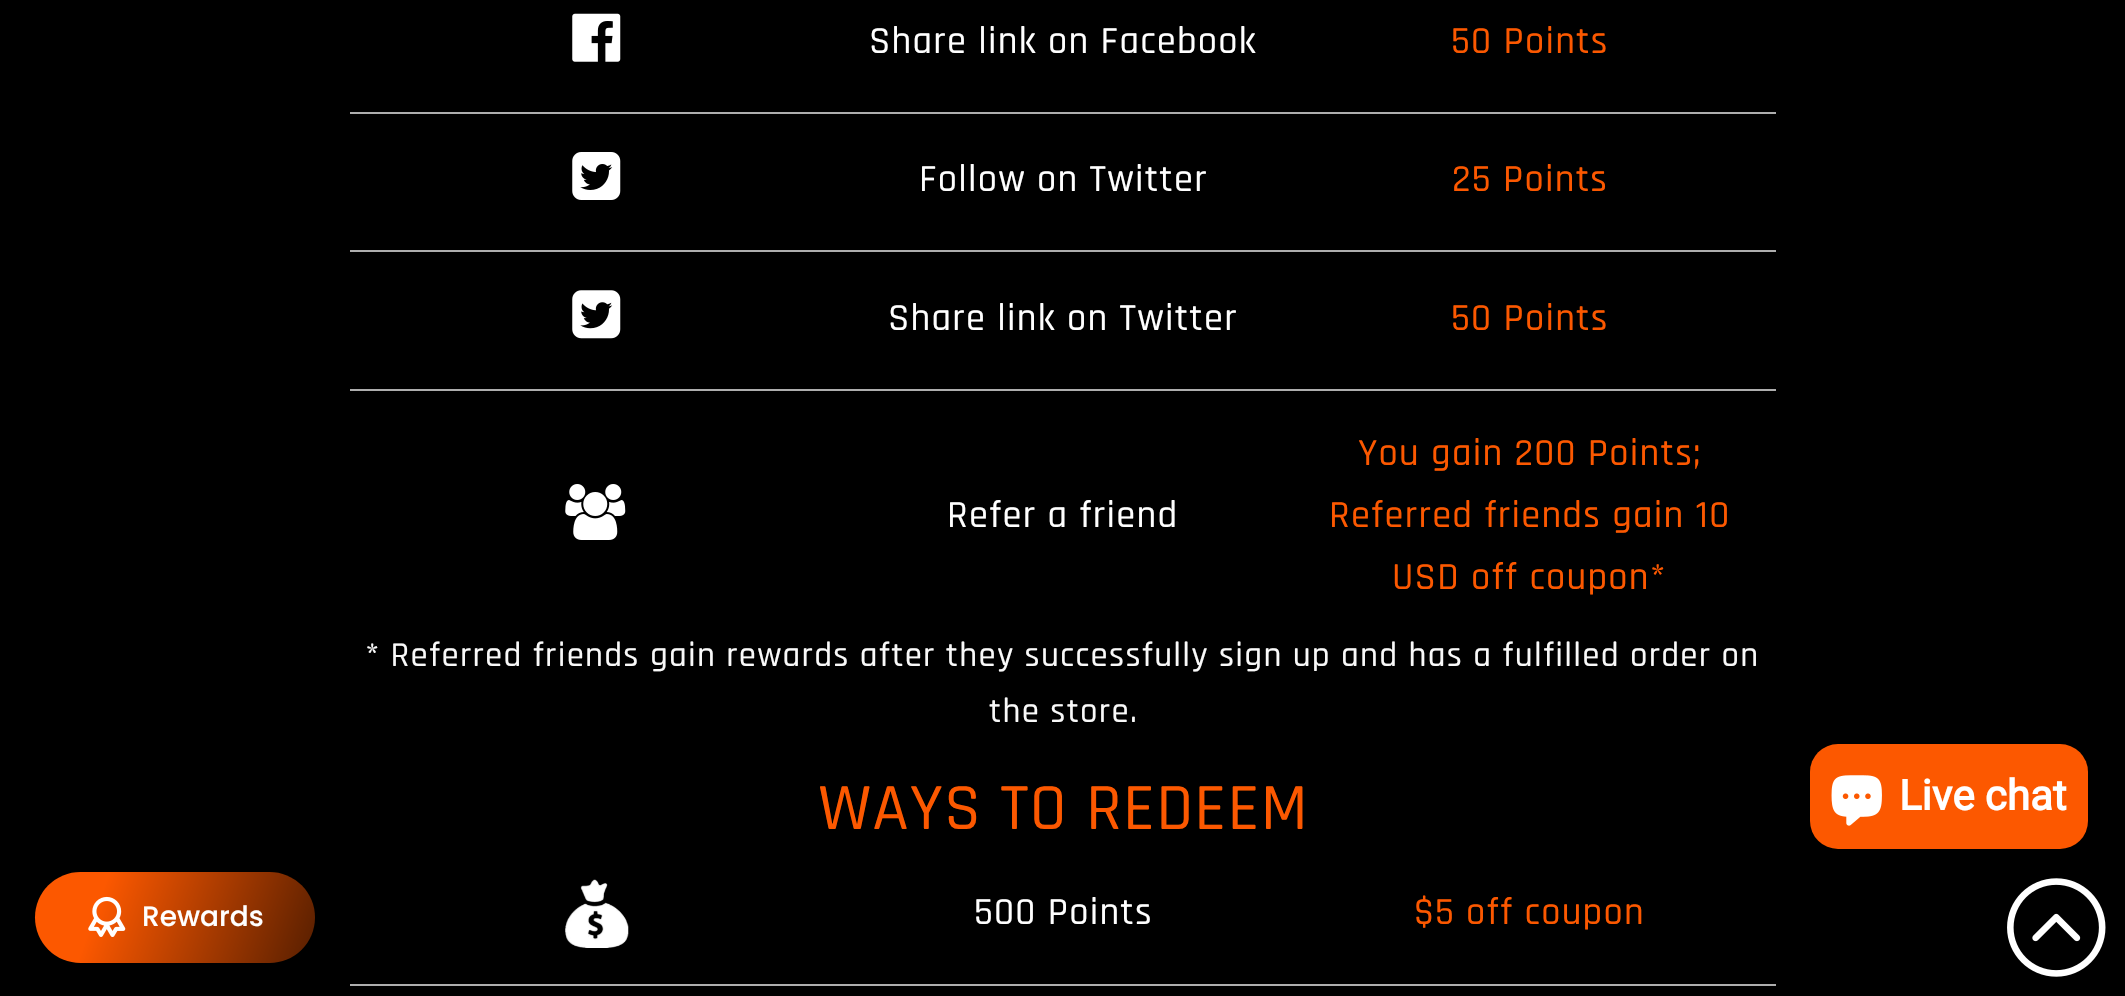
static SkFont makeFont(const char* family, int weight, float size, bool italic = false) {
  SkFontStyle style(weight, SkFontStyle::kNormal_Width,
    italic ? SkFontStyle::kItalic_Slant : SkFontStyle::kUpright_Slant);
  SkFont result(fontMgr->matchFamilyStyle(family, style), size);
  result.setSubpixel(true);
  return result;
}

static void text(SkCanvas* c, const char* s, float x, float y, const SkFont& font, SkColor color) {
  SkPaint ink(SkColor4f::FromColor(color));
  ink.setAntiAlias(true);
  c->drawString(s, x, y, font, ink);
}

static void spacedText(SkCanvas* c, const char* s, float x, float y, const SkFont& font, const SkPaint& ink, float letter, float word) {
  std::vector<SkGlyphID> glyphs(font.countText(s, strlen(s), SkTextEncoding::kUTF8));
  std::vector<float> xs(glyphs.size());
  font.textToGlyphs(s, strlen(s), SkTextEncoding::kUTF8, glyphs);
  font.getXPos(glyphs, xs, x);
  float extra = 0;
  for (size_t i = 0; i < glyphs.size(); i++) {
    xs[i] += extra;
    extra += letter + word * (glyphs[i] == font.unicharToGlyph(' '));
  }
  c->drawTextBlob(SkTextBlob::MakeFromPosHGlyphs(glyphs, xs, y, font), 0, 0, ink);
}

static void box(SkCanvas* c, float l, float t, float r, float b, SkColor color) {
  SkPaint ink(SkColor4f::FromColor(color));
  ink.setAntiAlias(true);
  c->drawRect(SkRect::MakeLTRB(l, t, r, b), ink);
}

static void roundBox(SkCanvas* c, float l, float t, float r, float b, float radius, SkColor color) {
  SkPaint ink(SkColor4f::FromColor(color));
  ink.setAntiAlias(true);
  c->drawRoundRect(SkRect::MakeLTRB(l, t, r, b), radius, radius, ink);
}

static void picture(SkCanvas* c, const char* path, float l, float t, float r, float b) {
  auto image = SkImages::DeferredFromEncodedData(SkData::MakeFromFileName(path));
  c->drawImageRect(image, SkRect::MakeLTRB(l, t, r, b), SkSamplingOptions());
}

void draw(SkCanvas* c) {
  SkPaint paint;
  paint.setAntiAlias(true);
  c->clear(0xff000000);
  picture(c, "img_01.png", 572, 13, 621, 62);
  SkFont face1 = makeFont("Rajdhani", 500, 38.5f);
  paint.setColor(0xffffffff);
  spacedText(c, "Share link on Facebook", 869, 53, face1, paint, 1.25f, 0);
  paint.setColor(0xfffc5800);
  spacedText(c, "50 Points", 1451, 53, face1, paint, 1.25f, 0);
  box(c, 350, 112, 1776, 114, 0xffaeaeae);
  picture(c, "img_02.png", 572, 152, 621, 200);
  paint.setColor(0xffffffff);
  spacedText(c, "Follow on Twitter", 919, 191, face1, paint, 1.25f, 0);
  paint.setColor(0xfffc5800);
  spacedText(c, "25 Points", 1452, 191, face1, paint, 1.25f, 0);
  box(c, 350, 250, 1776, 252, 0xffaeaeae);
  picture(c, "img_03.png", 572, 290, 621, 339);
  paint.setColor(0xffffffff);
  spacedText(c, "Share link on Twitter", 888, 330, face1, paint, 1.25f, 0);
  paint.setColor(0xfffc5800);
  spacedText(c, "50 Points", 1451, 330, face1, paint, 1.25f, 0);
  box(c, 350, 389, 1776, 391, 0xffaeaeae);
  picture(c, "img_04.png", 565, 484, 626, 540);
  paint.setColor(0xffffffff);
  spacedText(c, "Refer a friend", 947, 527, face1, paint, 1.25f, 0);
  paint.setColor(0xfffc5800);
  spacedText(c, "You gain 200 Points;", 1358, 465, face1, paint, 1.25f, 0);
  spacedText(c, "Referred friends gain 10", 1329, 527, face1, paint, 1.25f, 0);
  spacedText(c, "USD off coupon*", 1392, 589, face1, paint, 1.25f, 0);
  SkFont face2 = makeFont("Rajdhani", 500, 35);
  paint.setColor(0xfff9f9f9);
  spacedText(c, "* Referred friends gain rewards after they successfully sign up and has a fulfilled order on", 365, 666, face2, paint, 1.25f, 0);
  spacedText(c, "the store.", 989, 722, face2, paint, 1.25f, 0);
  SkFont face3 = makeFont("Rajdhani", 500, 66.5f);
  paint.setColor(0xfffc5800);
  spacedText(c, "WAYS TO REDEEM", 818, 829, face3, paint, 1.25f, 0);
  picture(c, "img_05.png", 565, 879, 629, 948);
  paint.setColor(0xffffffff);
  spacedText(c, "500 Points", 974, 924, face1, paint, 1.25f, 0);
  paint.setColor(0xfffc5800);
  spacedText(c, "$5 off coupon", 1414, 924, face1, paint, 1.25f, 0);
  box(c, 350, 984, 1776, 986, 0xffaeaeae);
  roundBox(c, 1810, 744, 2088, 849, 28, 0xfffc5800);
  picture(c, "img_06.png", 1831, 775, 1882, 826);
  SkFont face4 = makeFont("Roboto", 700, 42);
  text(c, "Live chat", 1899, 810, face4, 0xffffffff);
  {
    const SkColor colors[] = {0xfffc5800, 0xff000000};
    const float stops[] = {0.17f, 1};
    const SkPoint ends[] = {{36, 868}, {425, 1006}};
    paint.setShader(SkGradientShader::MakeLinear(ends, colors, stops, 2, SkTileMode::kClamp));
    paint.setAlpha(255);
  }
  c->drawRoundRect(SkRect::MakeLTRB(35, 872, 315, 963), 45.5f, 45.5f, paint);
  picture(c, "img_07.png", 88, 896, 126, 937);
  SkFont face5 = makeFont("Poppins", 500, 28);
  text(c, "Rewards", 142, 926, face5, 0xffffffff);
  picture(c, "img_08.png", 2007, 878, 2106, 977);
}
